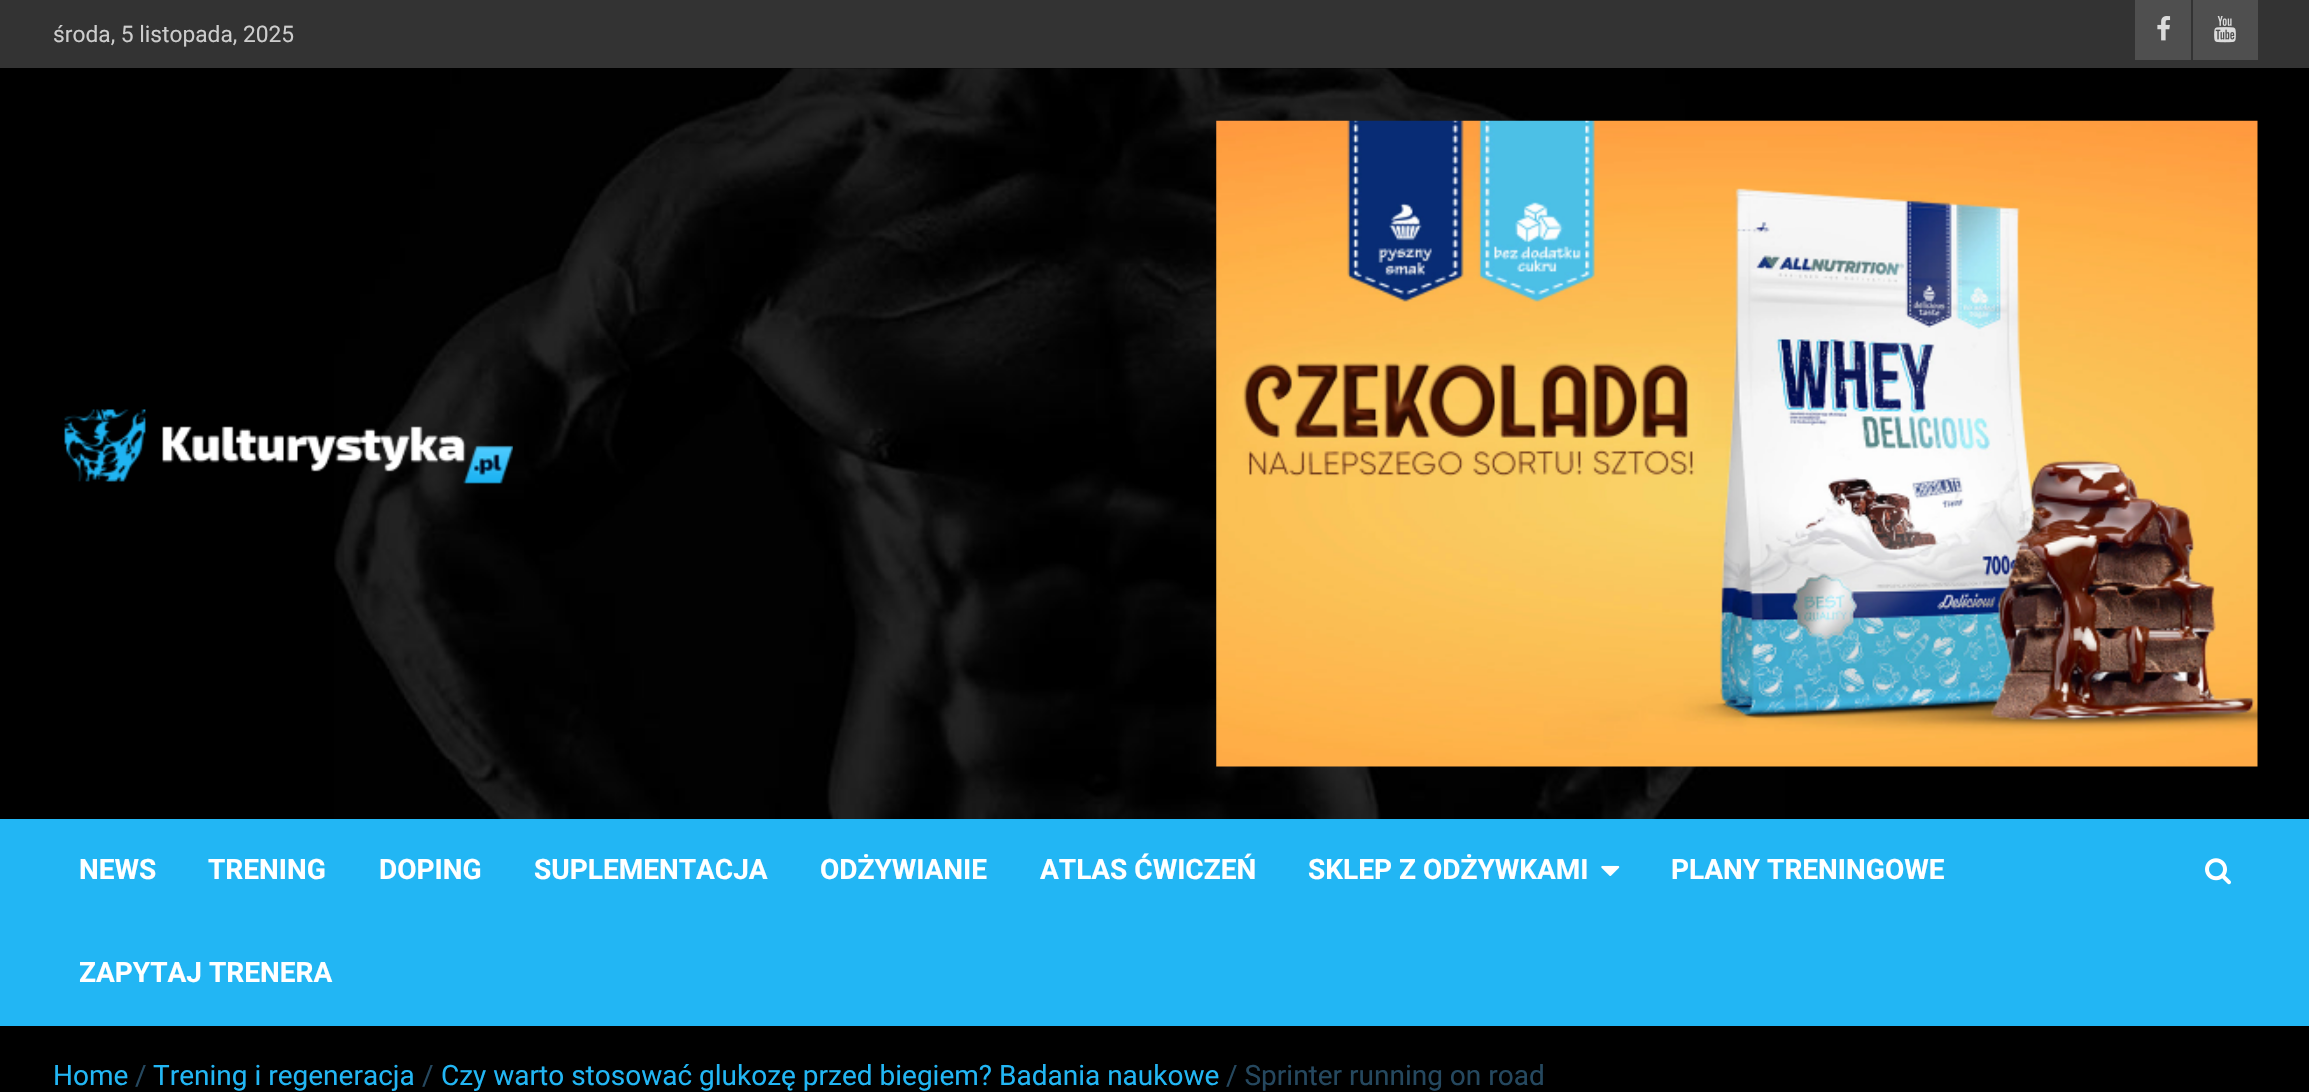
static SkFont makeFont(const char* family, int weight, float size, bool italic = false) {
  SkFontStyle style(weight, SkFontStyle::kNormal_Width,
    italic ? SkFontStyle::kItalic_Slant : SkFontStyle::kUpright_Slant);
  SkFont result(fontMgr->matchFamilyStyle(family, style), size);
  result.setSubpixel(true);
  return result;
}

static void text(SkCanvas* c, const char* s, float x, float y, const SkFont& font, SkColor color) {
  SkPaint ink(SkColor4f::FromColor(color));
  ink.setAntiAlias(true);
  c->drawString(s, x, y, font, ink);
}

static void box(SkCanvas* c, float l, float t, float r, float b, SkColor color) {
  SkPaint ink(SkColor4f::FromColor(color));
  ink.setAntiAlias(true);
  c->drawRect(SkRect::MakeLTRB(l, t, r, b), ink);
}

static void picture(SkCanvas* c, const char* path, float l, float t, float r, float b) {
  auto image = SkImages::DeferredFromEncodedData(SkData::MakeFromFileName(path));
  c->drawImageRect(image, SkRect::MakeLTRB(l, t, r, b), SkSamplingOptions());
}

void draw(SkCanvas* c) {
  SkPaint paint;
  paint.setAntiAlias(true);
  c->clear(0xff000000);
  box(c, 0, 0, 2309, 68, 0xff333333);
  SkFont face1 = makeFont("Roboto", 400, 22.75f);
  text(c, "środa, 5 listopada, 2025", 53, 42, face1, 0xffcccccc);
  box(c, 2135, 0, 2191, 60, 0xff4f4f4f);
  picture(c, "img_01.png", 2157, 16, 2171, 41);
  box(c, 2193, 0, 2258, 60, 0xff4f4f4f);
  picture(c, "img_02.png", 2214, 16, 2236, 43);
  picture(c, "img_03.png", 334, 68, 1795, 819);
  picture(c, "img_04.png", 64, 409, 513, 484);
  picture(c, "img_05.png", 1216, 120, 2258, 767);
  box(c, 0, 819, 2309, 1026, 0xff22b6f4);
  SkFont face2 = makeFont("Roboto", 700, 28);
  text(c, "NEWS", 79, 879, face2, 0xffffffff);
  text(c, "TRENING", 208, 879, face2, 0xffffffff);
  text(c, "DOPING", 379, 879, face2, 0xffffffff);
  text(c, "SUPLEMENTACJA", 534, 879, face2, 0xffffffff);
  text(c, "ODŻYWIANIE", 820, 879, face2, 0xffffffff);
  text(c, "ATLAS ĆWICZEŃ", 1040, 879, face2, 0xffffffff);
  text(c, "SKLEP Z ODŻYWKAMI", 1308, 879, face2, 0xffffffff);
  picture(c, "img_06.png", 1601, 865, 1620, 876);
  text(c, "PLANY TRENINGOWE", 1671, 879, face2, 0xffffffff);
  text(c, "ZAPYTAJ TRENERA", 79, 982, face2, 0xffffffff);
  picture(c, "img_07.png", 2205, 858, 2231, 885);
  SkFont face3 = makeFont("Roboto", 400, 28);
  text(c, "Home", 53, 1085, face3, 0xff22b6f4);
  text(c, "/", 135, 1085, face3, 0xff25485f);
  text(c, "Trening i regeneracja", 153, 1085, face3, 0xff22b6f4);
  text(c, "/", 422, 1085, face3, 0xff25485f);
  text(c, "Czy warto stosować glukozę przed biegiem? Badania naukowe", 441, 1085, face3, 0xff22b6f4);
  text(c, "/ Sprinter running on road", 1226, 1085, face3, 0xff25485f);
}
